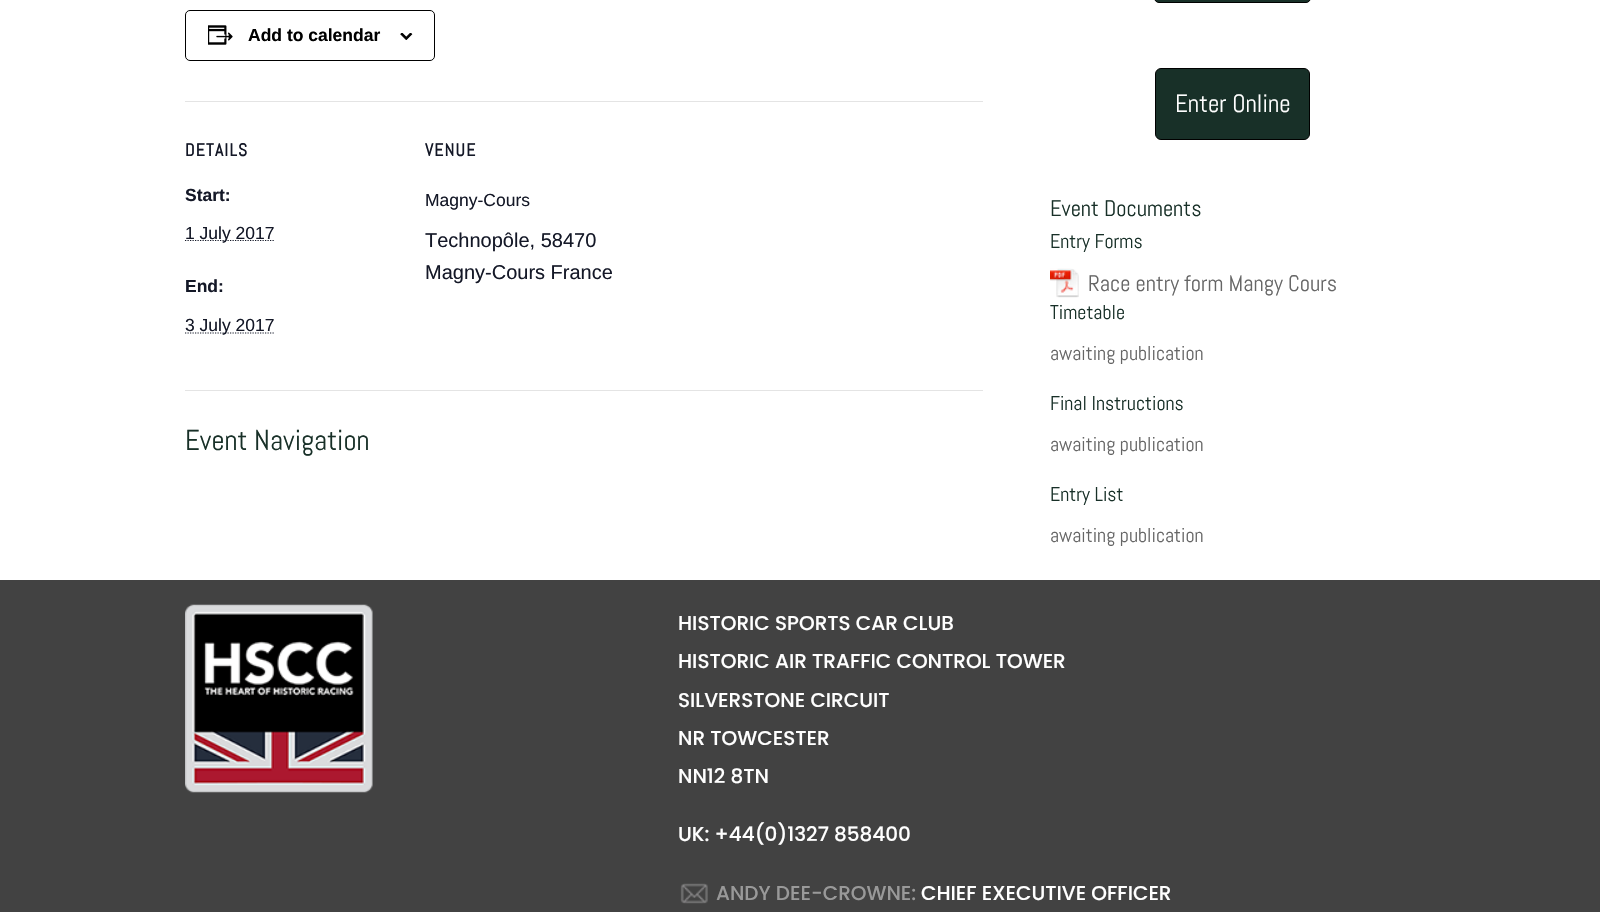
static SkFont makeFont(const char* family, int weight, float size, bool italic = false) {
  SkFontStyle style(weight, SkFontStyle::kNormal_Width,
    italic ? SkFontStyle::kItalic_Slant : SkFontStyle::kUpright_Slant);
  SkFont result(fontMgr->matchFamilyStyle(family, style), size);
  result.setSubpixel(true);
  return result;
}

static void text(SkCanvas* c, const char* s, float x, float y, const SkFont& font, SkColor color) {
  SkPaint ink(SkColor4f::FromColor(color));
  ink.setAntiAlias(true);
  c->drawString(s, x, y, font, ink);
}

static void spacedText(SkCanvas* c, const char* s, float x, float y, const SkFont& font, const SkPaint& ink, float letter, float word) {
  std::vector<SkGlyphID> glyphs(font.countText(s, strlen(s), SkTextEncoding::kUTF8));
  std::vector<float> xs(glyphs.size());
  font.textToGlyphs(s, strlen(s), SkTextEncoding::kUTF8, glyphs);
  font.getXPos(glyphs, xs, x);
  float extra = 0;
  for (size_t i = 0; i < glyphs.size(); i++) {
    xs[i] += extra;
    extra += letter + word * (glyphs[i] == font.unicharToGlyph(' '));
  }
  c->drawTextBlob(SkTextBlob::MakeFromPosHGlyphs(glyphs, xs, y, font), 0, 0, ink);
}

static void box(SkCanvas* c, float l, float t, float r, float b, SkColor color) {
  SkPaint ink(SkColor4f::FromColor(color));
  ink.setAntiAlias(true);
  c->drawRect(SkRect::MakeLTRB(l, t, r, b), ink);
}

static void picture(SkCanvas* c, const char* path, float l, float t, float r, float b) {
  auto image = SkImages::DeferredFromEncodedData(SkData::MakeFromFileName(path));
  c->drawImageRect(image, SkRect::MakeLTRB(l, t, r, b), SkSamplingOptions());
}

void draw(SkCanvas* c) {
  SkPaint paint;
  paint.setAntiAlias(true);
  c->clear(0xffffffff);
  paint.setStyle(SkPaint::kStroke_Style);
  paint.setStrokeWidth(1);
  paint.setColor(0xff000000);
  c->drawRoundRect(SkRect::MakeLTRB(185.5f, 10.5f, 434.5f, 60.5f), 4.5f, 4.5f, paint);
  picture(c, "img_01.png", 208, 25, 233, 45);
  SkFont face1 = makeFont("Liberation Sans", 700, 17.5f);
  text(c, "Add to calendar", 248, 41, face1, 0xff000000);
  picture(c, "img_02.png", 400, 33, 413, 40);
  box(c, 185, 101, 983, 102, 0xffe4e4e4);
  SkFont face2 = makeFont("Abel", 700, 17.5f);
  paint.setStyle(SkPaint::kFill_Style);
  paint.setColor(0xff141827);
  spacedText(c, "DETAILS", 185, 156, face2, paint, 1.25f, 0);
  text(c, "Start:", 185, 201, face1, 0xff141827);
  paint.setStyle(SkPaint::kStroke_Style);
  paint.setStrokeWidth(1.2f);
  paint.setPathEffect(SkDashPathEffect::Make({{1.25f, 1.25f}}, 0));
  c->drawPath(SkPathBuilder().moveTo(185, 240.5f).lineTo(274.5f, 240.5f).detach(), paint);
  paint.setPathEffect(nullptr);
  SkFont face3 = makeFont("Liberation Sans", 400, 17.5f);
  text(c, "1 July 2017", 185, 239, face3, 0xff141827);
  text(c, "End:", 185, 292, face1, 0xff141827);
  paint.setPathEffect(SkDashPathEffect::Make({{1.25f, 1.25f}}, 0));
  c->drawPath(SkPathBuilder().moveTo(185, 333).lineTo(274.5f, 333).detach(), paint);
  paint.setPathEffect(nullptr);
  text(c, "3 July 2017", 185, 331, face3, 0xff141827);
  paint.setStyle(SkPaint::kFill_Style);
  spacedText(c, "VENUE", 425, 156, face2, paint, 1.25f, 0);
  text(c, "Magny-Cours", 425, 206, face3, 0xff141827);
  SkFont face4 = makeFont("Liberation Sans", 400, 20);
  text(c, "Technopôle, 58470", 425, 247, face4, 0xff141827);
  text(c, "Magny-Cours France", 425, 279, face4, 0xff141827);
  box(c, 185, 390, 983, 391, 0xffe4e4e4);
  SkFont face5 = makeFont("Abel", 400, 28.75f);
  text(c, "Event Navigation", 185, 450, face5, 0xff183028);
  paint.setColor(0xff183028);
  c->drawRoundRect(SkRect::MakeLTRB(1154.5f, -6.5f, 1310.5f, 2.5f), 5.5f, 5.5f, paint);
  paint.setStyle(SkPaint::kStroke_Style);
  paint.setStrokeWidth(1);
  paint.setColor(0xff000000);
  c->drawRoundRect(SkRect::MakeLTRB(1154.5f, -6.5f, 1310.5f, 2.5f), 5.5f, 5.5f, paint);
  paint.setStyle(SkPaint::kFill_Style);
  paint.setColor(0xff183028);
  c->drawRoundRect(SkRect::MakeLTRB(1155.5f, 68.5f, 1309.5f, 139.5f), 5.5f, 5.5f, paint);
  paint.setStyle(SkPaint::kStroke_Style);
  paint.setColor(0xff000000);
  c->drawRoundRect(SkRect::MakeLTRB(1155.5f, 68.5f, 1309.5f, 139.5f), 5.5f, 5.5f, paint);
  SkFont face6 = makeFont("Abel", 400, 25);
  text(c, "Enter Online", 1175, 112, face6, 0xffffffff);
  SkFont face7 = makeFont("Abel", 400, 22.5f);
  text(c, "Event Documents", 1050, 216, face7, 0xff183028);
  SkFont face8 = makeFont("Abel", 400, 20);
  text(c, "Entry Forms", 1050, 248, face8, 0xff183028);
  picture(c, "img_03.png", 1050, 268, 1079, 298);
  text(c, "Race entry form Mangy Cours", 1088, 291, face7, 0xff666666);
  text(c, "Timetable", 1050, 319, face8, 0xff183028);
  text(c, "awaiting publication", 1050, 360, face8, 0xff666666);
  text(c, "Final Instructions", 1050, 410, face8, 0xff183028);
  text(c, "awaiting publication", 1050, 451, face8, 0xff666666);
  text(c, "Entry List", 1050, 501, face8, 0xff183028);
  text(c, "awaiting publication", 1050, 542, face8, 0xff666666);
  box(c, 0, 580, 1600, 912, 0xff424242);
  picture(c, "img_04.png", 185, 604, 373, 793);
  SkFont face9 = makeFont("Poppins", 500, 20);
  text(c, "HISTORIC SPORTS CAR CLUB", 678, 630, face9, 0xffffffff);
  text(c, "HISTORIC AIR TRAFFIC CONTROL TOWER", 678, 668, face9, 0xffffffff);
  text(c, "SILVERSTONE CIRCUIT", 678, 707, face9, 0xffffffff);
  text(c, "NR TOWCESTER", 678, 745, face9, 0xffffffff);
  text(c, "NN12 8TN", 678, 783, face9, 0xffffffff);
  text(c, "UK: +44(0)1327 858400", 678, 841, face9, 0xffffffff);
  picture(c, "img_05.png", 680, 883, 708, 904);
  text(c, "ANDY DEE-CROWNE:", 716, 900, face9, 0xff999999);
  text(c, "CHIEF EXECUTIVE OFFICER", 921, 900, face9, 0xffffffff);
}
